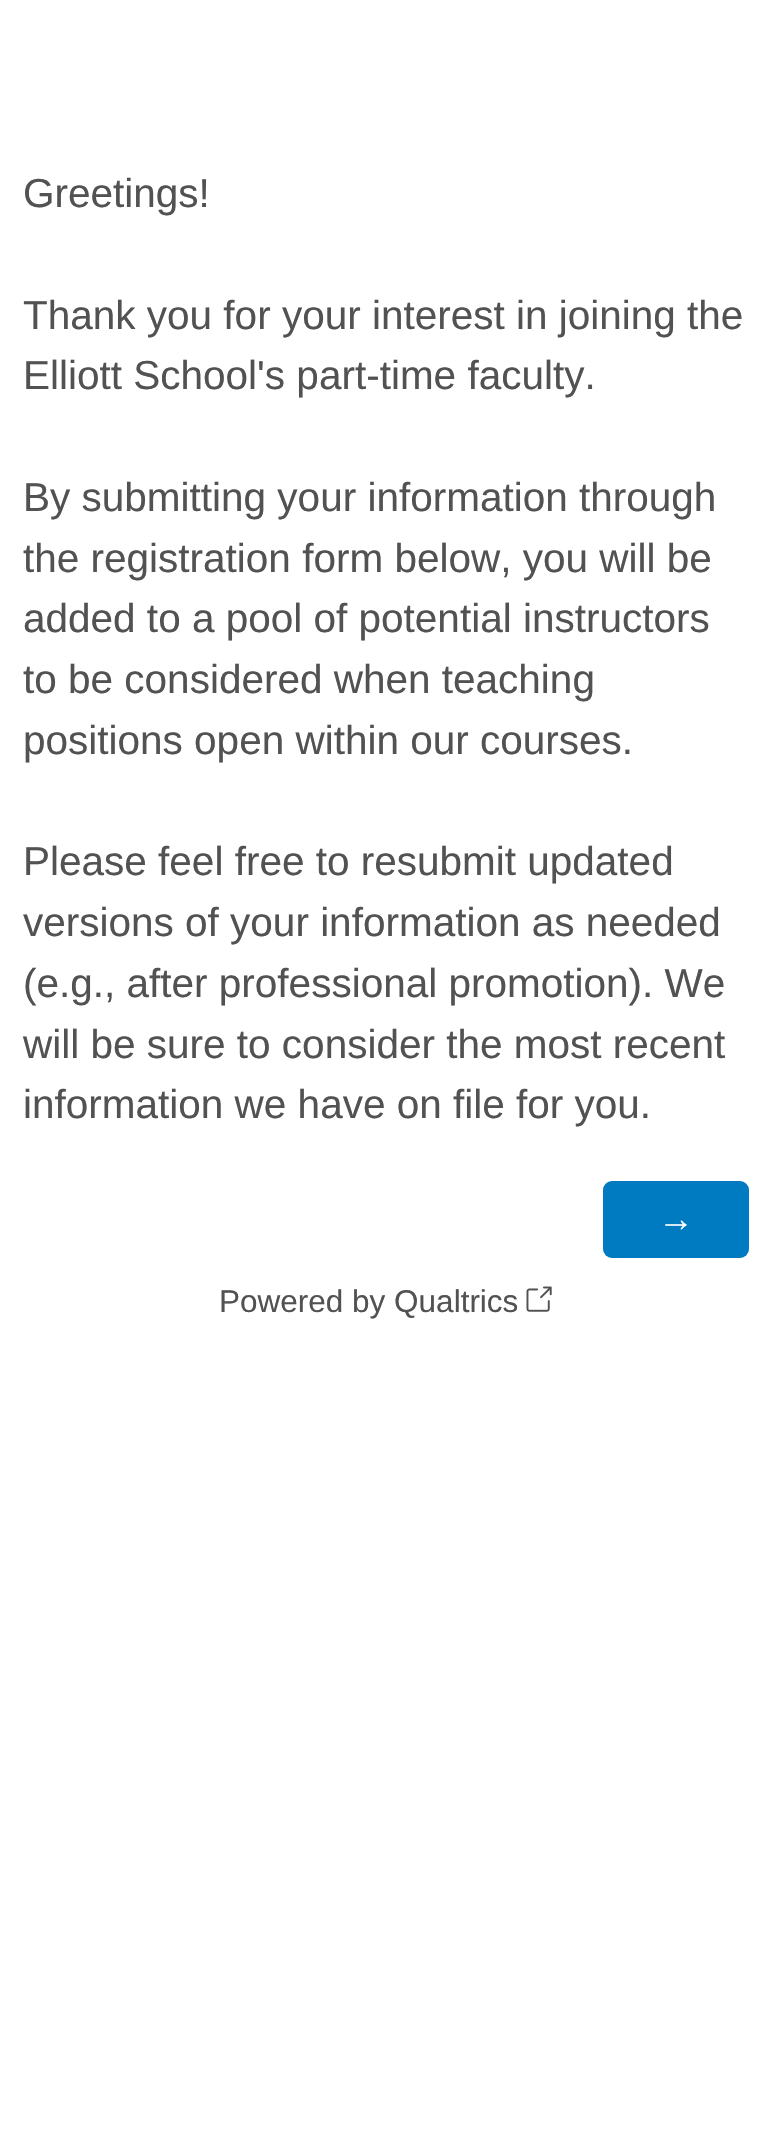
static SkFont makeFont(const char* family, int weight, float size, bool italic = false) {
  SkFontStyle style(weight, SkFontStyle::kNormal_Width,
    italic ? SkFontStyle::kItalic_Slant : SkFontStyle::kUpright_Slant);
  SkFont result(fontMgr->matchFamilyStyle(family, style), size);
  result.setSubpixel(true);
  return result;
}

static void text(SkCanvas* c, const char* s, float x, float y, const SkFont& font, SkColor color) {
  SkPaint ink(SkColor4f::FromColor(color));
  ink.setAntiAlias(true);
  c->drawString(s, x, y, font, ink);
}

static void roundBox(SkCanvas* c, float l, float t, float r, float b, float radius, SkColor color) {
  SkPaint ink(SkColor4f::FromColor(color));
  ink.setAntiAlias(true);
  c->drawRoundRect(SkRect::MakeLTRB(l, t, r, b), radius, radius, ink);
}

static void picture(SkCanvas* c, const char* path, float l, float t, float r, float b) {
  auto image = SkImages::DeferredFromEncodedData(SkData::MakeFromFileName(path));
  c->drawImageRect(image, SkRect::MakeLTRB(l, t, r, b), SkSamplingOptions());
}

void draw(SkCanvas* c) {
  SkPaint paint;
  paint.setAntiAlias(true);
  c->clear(0xffffffff);
  SkFont face1 = makeFont("Liberation Sans", 400, 40.5f);
  text(c, "Greetings!", 23, 207, face1, 0xff525252);
  text(c, "Thank you for your interest in joining the", 23, 329, face1, 0xff525252);
  text(c, "Elliott School's part-time faculty.", 23, 389, face1, 0xff525252);
  text(c, "By submitting your information through", 23, 511, face1, 0xff525252);
  text(c, "the registration form below, you will be", 23, 572, face1, 0xff525252);
  text(c, "added to a pool of potential instructors", 23, 632, face1, 0xff525252);
  text(c, "to be considered when teaching", 23, 693, face1, 0xff525252);
  text(c, "positions open within our courses.", 23, 754, face1, 0xff525252);
  text(c, "Please feel free to resubmit updated", 23, 875, face1, 0xff525252);
  text(c, "versions of your information as needed", 23, 936, face1, 0xff525252);
  text(c, "(e.g., after professional promotion). We", 23, 997, face1, 0xff525252);
  text(c, "will be sure to consider the most recent", 23, 1058, face1, 0xff525252);
  text(c, "information we have on file for you.", 23, 1118, face1, 0xff525252);
  roundBox(c, 603, 1181, 749, 1258, 9, 0xff007ac0);
  SkFont face2 = makeFont("Liberation Sans", 400, 36);
  text(c, "→", 658, 1231, face2, 0xffffffff);
  SkFont face3 = makeFont("Liberation Sans", 400, 31.5f);
  text(c, "Powered by Qualtrics", 219, 1312, face3, 0xff525252);
  picture(c, "img_01.png", 526, 1286, 552, 1312);
}
